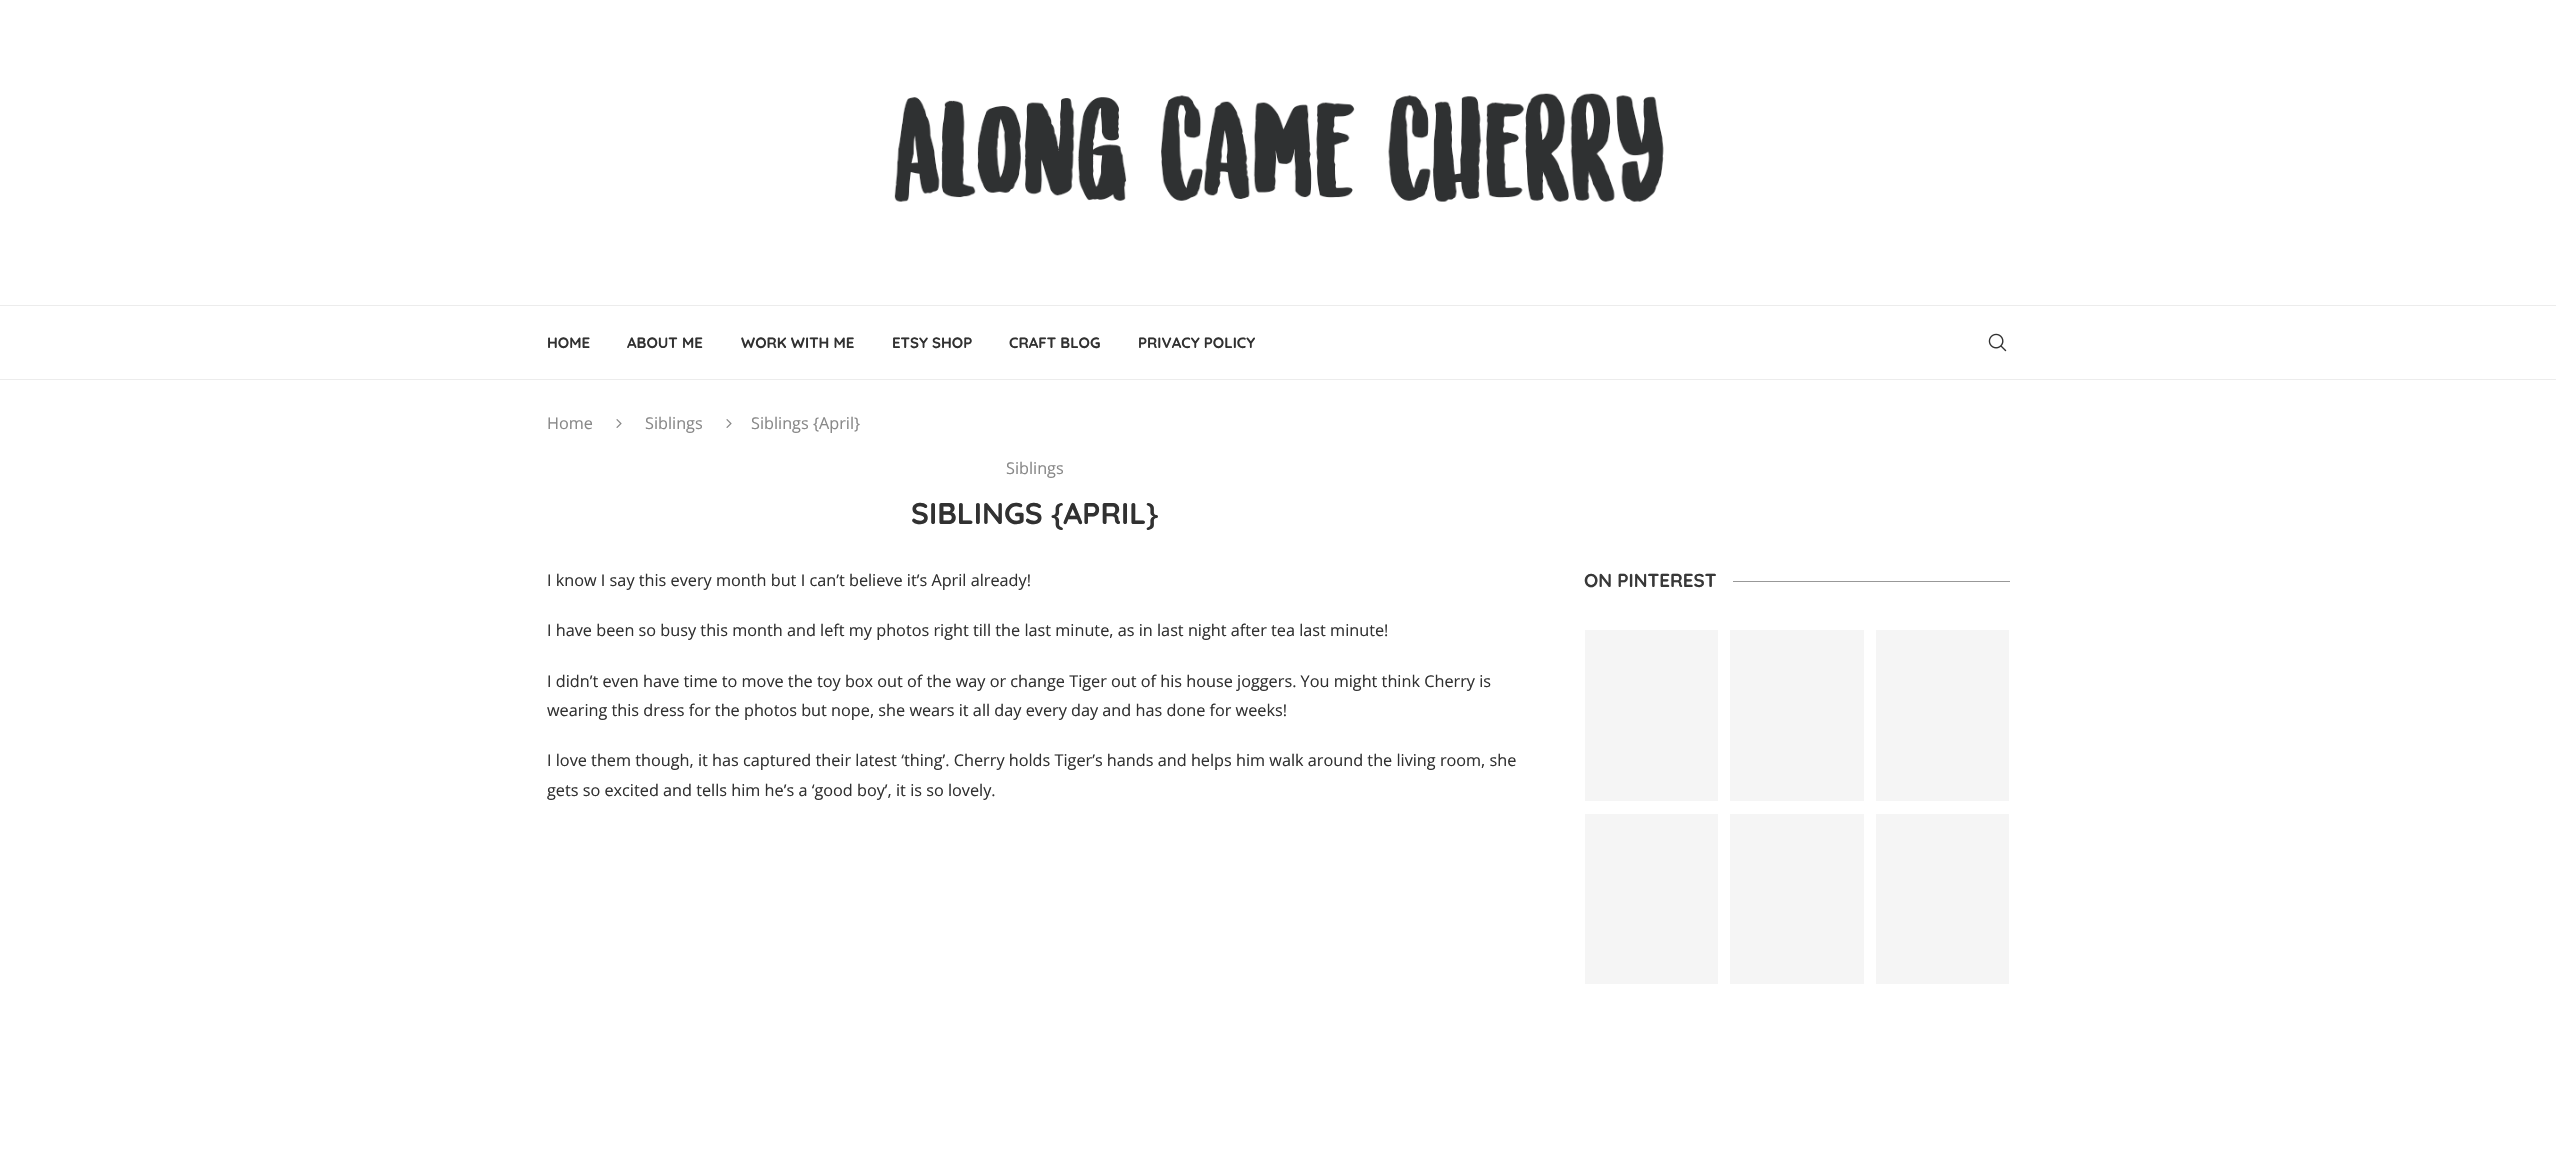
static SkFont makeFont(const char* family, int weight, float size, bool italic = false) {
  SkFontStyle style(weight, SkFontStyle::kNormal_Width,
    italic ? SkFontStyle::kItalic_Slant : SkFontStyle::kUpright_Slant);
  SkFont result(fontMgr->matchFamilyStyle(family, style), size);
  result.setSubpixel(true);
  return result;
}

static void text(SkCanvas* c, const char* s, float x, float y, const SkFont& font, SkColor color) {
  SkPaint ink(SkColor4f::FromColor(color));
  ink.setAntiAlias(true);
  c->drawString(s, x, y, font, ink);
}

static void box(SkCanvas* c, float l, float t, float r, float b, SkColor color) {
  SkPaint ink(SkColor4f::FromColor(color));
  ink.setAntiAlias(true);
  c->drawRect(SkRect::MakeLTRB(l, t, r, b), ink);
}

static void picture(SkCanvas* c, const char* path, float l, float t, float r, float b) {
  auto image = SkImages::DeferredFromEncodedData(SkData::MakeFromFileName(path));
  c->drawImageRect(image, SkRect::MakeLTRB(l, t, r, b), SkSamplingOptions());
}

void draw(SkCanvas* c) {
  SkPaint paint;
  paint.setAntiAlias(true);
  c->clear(0xffffffff);
  picture(c, "img_01.png", 894, 93, 1664, 202);
  box(c, 0, 305, 2556, 306, 0xffececec);
  box(c, 0, 379, 2556, 380, 0xffececec);
  SkFont face1 = makeFont("Quicksand", 700, 15);
  text(c, "HOME", 547, 348, face1, 0xff313131);
  text(c, "ABOUT ME", 627, 348, face1, 0xff313131);
  text(c, "WORK WITH ME", 741, 348, face1, 0xff313131);
  text(c, "ETSY SHOP", 892, 348, face1, 0xff313131);
  text(c, "CRAFT BLOG", 1009, 348, face1, 0xff313131);
  text(c, "PRIVACY POLICY", 1138, 348, face1, 0xff313131);
  picture(c, "img_02.png", 1988, 333, 2007, 352);
  SkFont face2 = makeFont("Open Sans", 400, 16.25f);
  text(c, "Home", 547, 429, face2, 0xff888888);
  picture(c, "img_03.png", 616, 419, 622, 428);
  text(c, "Siblings", 645, 429, face2, 0xff888888);
  picture(c, "img_03.png", 726, 419, 732, 428);
  text(c, "Siblings {April}", 751, 429, face2, 0xff888888);
  text(c, "Siblings", 1006, 474, face2, 0xff888888);
  SkFont face3 = makeFont("Quicksand", 700, 30);
  text(c, "SIBLINGS {APRIL}", 911, 524, face3, 0xff313131);
  text(c, "I know I say this every month but I can’t believe it’s April already!", 547, 586, face2, 0xff313131);
  text(c, "I have been so busy this month and left my photos right till the last minute, as in last night after tea last minute!", 547, 636, face2, 0xff313131);
  text(c, "I didn’t even have time to move the toy box out of the way or change Tiger out of his house joggers. You might think Cherry is", 547, 687, face2, 0xff313131);
  text(c, "wearing this dress for the photos but nope, she wears it all day every day and has done for weeks!", 547, 716, face2, 0xff313131);
  text(c, "I love them though, it has captured their latest ‘thing’. Cherry holds Tiger’s hands and helps him walk around the living room, she", 547, 766, face2, 0xff313131);
  text(c, "gets so excited and tells him he’s a ‘good boy’, it is so lovely.", 547, 796, face2, 0xff313131);
  SkFont face4 = makeFont("Quicksand", 700, 18.75f);
  text(c, "ON PINTEREST", 1584, 587, face4, 0xff383838);
  box(c, 1733, 581, 2010, 582, 0xff989898);
  box(c, 1585, 630, 1718, 801, 0xfff5f5f5);
  box(c, 1730, 630, 1864, 801, 0xfff5f5f5);
  box(c, 1876, 630, 2009, 801, 0xfff5f5f5);
  box(c, 1585, 814, 1718, 984, 0xfff5f5f5);
  box(c, 1730, 814, 1864, 984, 0xfff5f5f5);
  box(c, 1876, 814, 2009, 984, 0xfff5f5f5);
}
